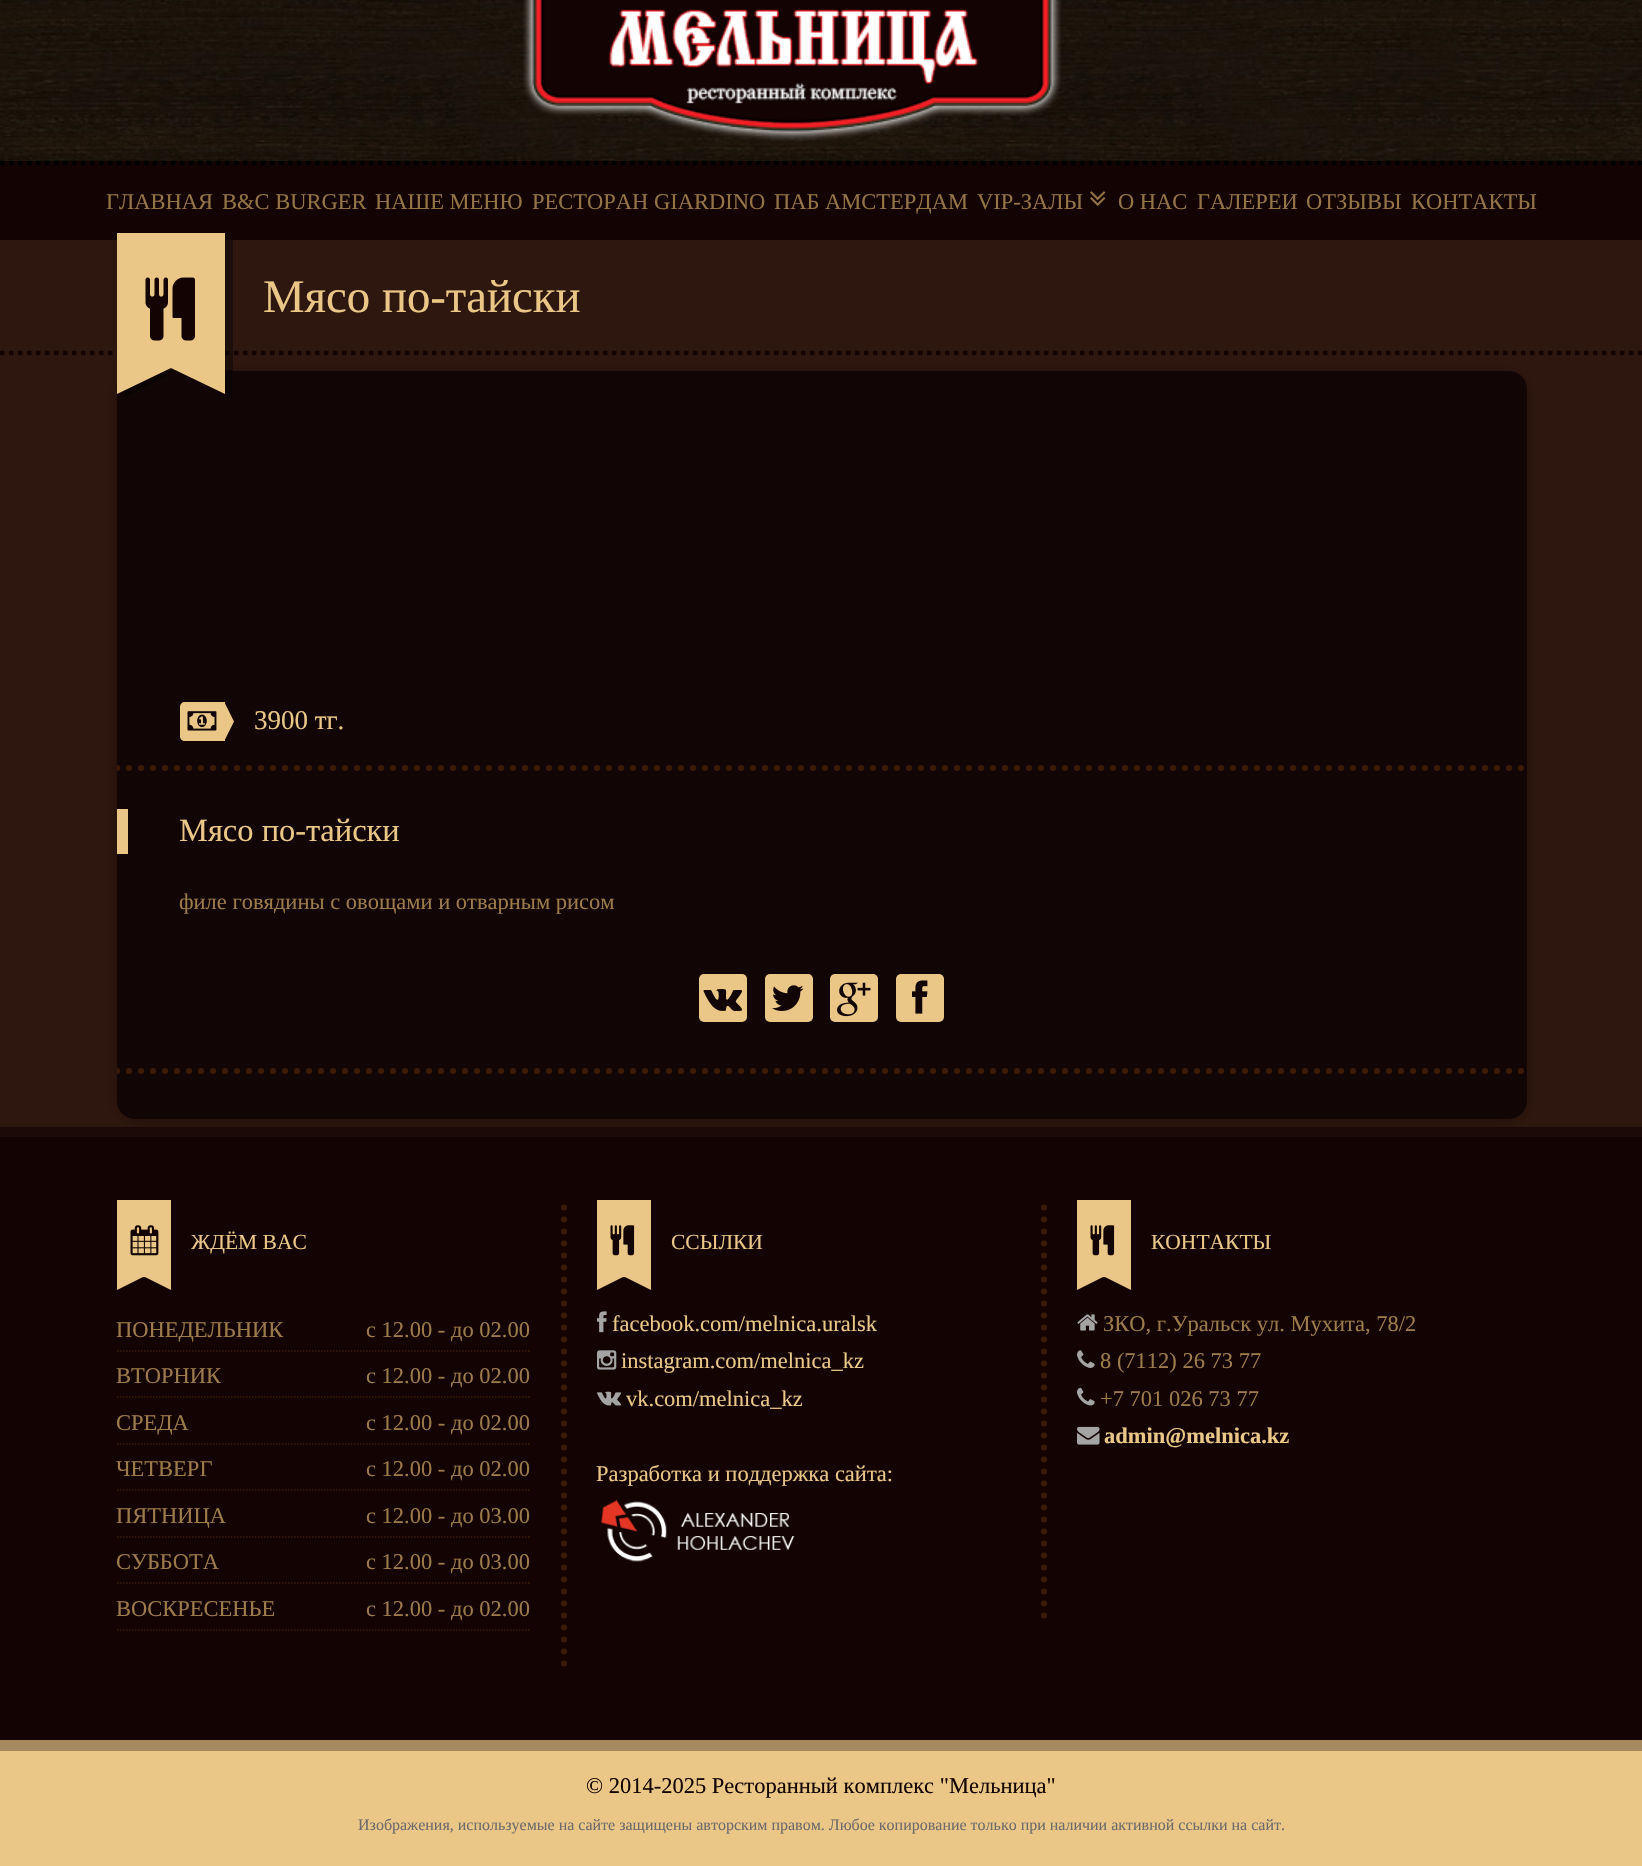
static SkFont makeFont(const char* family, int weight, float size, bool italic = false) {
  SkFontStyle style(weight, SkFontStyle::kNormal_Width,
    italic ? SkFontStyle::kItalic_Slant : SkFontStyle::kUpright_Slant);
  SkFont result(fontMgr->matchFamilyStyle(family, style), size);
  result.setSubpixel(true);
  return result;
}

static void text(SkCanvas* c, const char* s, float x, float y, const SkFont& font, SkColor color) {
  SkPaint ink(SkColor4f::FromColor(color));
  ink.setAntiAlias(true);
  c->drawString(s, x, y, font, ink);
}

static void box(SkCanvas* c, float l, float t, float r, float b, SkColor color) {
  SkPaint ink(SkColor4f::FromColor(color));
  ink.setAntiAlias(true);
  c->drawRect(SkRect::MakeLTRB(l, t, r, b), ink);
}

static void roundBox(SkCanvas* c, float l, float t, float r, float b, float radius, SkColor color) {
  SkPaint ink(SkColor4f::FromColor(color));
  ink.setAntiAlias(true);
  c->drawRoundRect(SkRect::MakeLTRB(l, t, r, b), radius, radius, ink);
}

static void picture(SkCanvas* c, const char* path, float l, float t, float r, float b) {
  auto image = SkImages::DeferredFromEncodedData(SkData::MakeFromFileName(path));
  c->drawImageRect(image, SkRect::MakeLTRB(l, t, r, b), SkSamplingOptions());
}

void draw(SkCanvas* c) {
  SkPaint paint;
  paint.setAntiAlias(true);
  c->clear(0xff2e170e);
  picture(c, "img_01.png", 0, 0, 1642, 161);
  picture(c, "img_02.png", 523, 0, 1061, 141);
  box(c, 0, 161, 1642, 240, 0xff130403);
  paint.setStyle(SkPaint::kStroke_Style);
  paint.setStrokeWidth(4.5f);
  paint.setColor(0xff000000);
  paint.setPathEffect(SkDashPathEffect::Make({{4.5f, 4.5f}}, 0));
  c->drawPath(SkPathBuilder().moveTo(0, 163).lineTo(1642.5f, 163).detach(), paint);
  paint.setPathEffect(nullptr);
  SkFont face1 = makeFont("Liberation Serif", 400, 22.5f);
  text(c, "ГЛАВНАЯ", 106, 209, face1, 0xff947345);
  text(c, "B&C BURGER", 222, 209, face1, 0xff947345);
  text(c, "НАШЕ МЕНЮ", 375, 209, face1, 0xff947345);
  text(c, "РЕСТОРАН GIARDINO", 532, 209, face1, 0xff947345);
  text(c, "ПАБ АМСТЕРДАМ", 774, 209, face1, 0xff947345);
  text(c, "VIP-ЗАЛЫ", 977, 209, face1, 0xff947345);
  picture(c, "img_03.png", 1090, 191, 1106, 206);
  text(c, "О НАС", 1118, 209, face1, 0xff947345);
  text(c, "ГАЛЕРЕИ", 1197, 209, face1, 0xff947345);
  text(c, "ОТЗЫВЫ", 1306, 209, face1, 0xff947345);
  text(c, "КОНТАКТЫ", 1411, 209, face1, 0xff947345);
  paint.setStyle(SkPaint::kFill_Style);
  paint.setColor(0xff110605);
  paint.setMaskFilter(SkMaskFilter::MakeBlur(kNormal_SkBlurStyle, 12));
  c->drawRoundRect(SkRect::MakeLTRB(126, 383, 1518, 1113), 9, 9, paint);
  paint.setMaskFilter(nullptr);
  paint.setStyle(SkPaint::kStroke_Style);
  paint.setColor(0xff130403);
  paint.setPathEffect(SkDashPathEffect::Make({{4.5f, 4.5f}}, 0));
  c->drawPath(SkPathBuilder().moveTo(0, 353).lineTo(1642.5f, 353).detach(), paint);
  paint.setPathEffect(nullptr);
  box(c, 164, 240, 233, 371, 0x66000000);
  box(c, 117, 233, 225, 368, 0xffeac687);
  picture(c, "img_04.png", 145, 277, 195, 341);
  roundBox(c, 117, 371, 1527, 1119, 18, 0xff110605);
  paint.setStyle(SkPaint::kFill_Style);
  paint.setColor(0x66000000);
  c->drawPath(SkPathBuilder().moveTo(232, 370).lineTo(232, 398).lineTo(178, 370).close().detach(), paint);
  c->drawPath(SkPathBuilder().moveTo(124, 398).lineTo(124, 370).lineTo(178, 370).close().detach(), paint);
  paint.setColor(0xffeac687);
  c->drawPath(SkPathBuilder().moveTo(225, 368).lineTo(225, 394).lineTo(171, 368).close().detach(), paint);
  c->drawPath(SkPathBuilder().moveTo(117, 394).lineTo(117, 368).lineTo(171, 368).close().detach(), paint);
  SkFont face2 = makeFont("Liberation Serif", 400, 46.75f);
  text(c, "Мясо по-тайски", 263, 312, face2, 0xffeac687);
  c->save();
  c->clipPath(SkPathBuilder().moveTo(135, 371).lineTo(1509, 371).cubicTo(1519, 371, 1527, 379, 1527, 389).lineTo(1527, 1101).cubicTo(1527, 1111, 1519, 1119, 1509, 1119).lineTo(135, 1119).cubicTo(125, 1119, 117, 1111, 117, 1101).lineTo(117, 389).cubicTo(117, 379, 125, 371, 135, 371).close().detach(), true);
  paint.setStyle(SkPaint::kStroke_Style);
  paint.setStrokeWidth(6);
  paint.setStrokeCap(SkPaint::kRound_Cap);
  paint.setColor(0xff3b1b05);
  paint.setPathEffect(SkDashPathEffect::Make({{0, 12}}, 0));
  c->drawPath(SkPathBuilder().moveTo(117, 1071).lineTo(1527, 1071).detach(), paint);
  paint.setPathEffect(nullptr);
  paint.setPathEffect(SkDashPathEffect::Make({{0, 12}}, 0));
  c->drawPath(SkPathBuilder().moveTo(117, 768).lineTo(1527, 768).detach(), paint);
  paint.setPathEffect(nullptr);
  c->restore();
  paint.setStyle(SkPaint::kFill_Style);
  paint.setColor(0xffeac687);
  c->drawPath(SkPathBuilder().moveTo(185, 702).lineTo(225, 702).lineTo(225, 741).lineTo(185, 741).cubicTo(182, 741, 180, 739, 180, 736).lineTo(180, 707).cubicTo(180, 704, 182, 702, 185, 702).close().detach(), paint);
  picture(c, "img_05.png", 187, 711, 217, 731);
  c->drawPath(SkPathBuilder().moveTo(225, 739.5f).lineTo(225, 703.5f).lineTo(234, 721.5f).close().detach(), paint);
  SkFont face3 = makeFont("Liberation Serif", 400, 27);
  text(c, "3900 тг.", 254, 729, face3, 0xffeac687);
  box(c, 117, 809, 128, 854, 0xffeac687);
  SkFont face4 = makeFont("Liberation Serif", 400, 32.5f);
  text(c, "Мясо по-тайски", 179, 841, face4, 0xffeac687);
  text(c, "филе говядины с овощами и отварным рисом", 179, 909, face1, 0xff9d7a4a);
  roundBox(c, 699, 974, 747, 1022, 5, 0xffeac687);
  picture(c, "img_06.png", 703, 989, 742, 1011);
  roundBox(c, 765, 974, 813, 1022, 5, 0xffeac687);
  picture(c, "img_07.png", 772, 985, 804, 1011);
  roundBox(c, 830, 974, 878, 1022, 5, 0xffeac687);
  picture(c, "img_08.png", 837, 982, 871, 1017);
  roundBox(c, 896, 974, 944, 1022, 5, 0xffeac687);
  picture(c, "img_09.png", 912, 980, 928, 1014);
  box(c, 0, 1137, 1642, 1740, 0xff130403);
  box(c, 0, 1127, 1642, 1137, 0xff1b0a07);
  paint.setStyle(SkPaint::kStroke_Style);
  paint.setColor(0xff3b1b05);
  paint.setPathEffect(SkDashPathEffect::Make({{0, 12}}, 0));
  c->drawPath(SkPathBuilder().moveTo(564, 1207.5f).lineTo(564, 1675.5f).detach(), paint);
  paint.setPathEffect(nullptr);
  box(c, 117, 1200, 171, 1277, 0xffeac687);
  picture(c, "img_10.png", 130, 1225, 159, 1256);
  paint.setStyle(SkPaint::kFill_Style);
  paint.setColor(0xffeac687);
  c->drawPath(SkPathBuilder().moveTo(171, 1276.5f).lineTo(171, 1290).lineTo(144, 1276.5f).close().moveTo(117, 1290).lineTo(117, 1276.5f).lineTo(144, 1276.5f).close().detach(), paint);
  SkFont face5 = makeFont("Liberation Serif", 400, 21.5f);
  text(c, "ЖДЁМ ВАС", 191, 1249, face5, 0xffeac687);
  paint.setStyle(SkPaint::kStroke_Style);
  paint.setStrokeWidth(1.5f);
  paint.setStrokeCap(SkPaint::kButt_Cap);
  paint.setColor(0xff3b1b05);
  paint.setPathEffect(SkDashPathEffect::Make({{1.5f, 1.5f}}, 0));
  c->drawPath(SkPathBuilder().moveTo(117, 1351).lineTo(531, 1351).detach(), paint);
  paint.setPathEffect(nullptr);
  text(c, "ПОНЕДЕЛЬНИК", 116, 1337, face1, 0xff9d7a4a);
  text(c, "с 12.00 - до 02.00", 366, 1337, face1, 0xff9d7a4a);
  paint.setPathEffect(SkDashPathEffect::Make({{1.5f, 1.5f}}, 0));
  c->drawPath(SkPathBuilder().moveTo(117, 1397).lineTo(531, 1397).detach(), paint);
  paint.setPathEffect(nullptr);
  text(c, "ВТОРНИК", 116, 1383, face1, 0xff9d7a4a);
  text(c, "с 12.00 - до 02.00", 366, 1383, face1, 0xff9d7a4a);
  paint.setPathEffect(SkDashPathEffect::Make({{1.5f, 1.5f}}, 0));
  c->drawPath(SkPathBuilder().moveTo(117, 1444).lineTo(531, 1444).detach(), paint);
  paint.setPathEffect(nullptr);
  text(c, "СРЕДА", 116, 1430, face1, 0xff9d7a4a);
  text(c, "с 12.00 - до 02.00", 366, 1430, face1, 0xff9d7a4a);
  paint.setPathEffect(SkDashPathEffect::Make({{1.5f, 1.5f}}, 0));
  c->drawPath(SkPathBuilder().moveTo(117, 1490).lineTo(531, 1490).detach(), paint);
  paint.setPathEffect(nullptr);
  text(c, "ЧЕТВЕРГ", 116, 1476, face1, 0xff9d7a4a);
  text(c, "с 12.00 - до 02.00", 366, 1476, face1, 0xff9d7a4a);
  paint.setPathEffect(SkDashPathEffect::Make({{1.5f, 1.5f}}, 0));
  c->drawPath(SkPathBuilder().moveTo(117, 1537).lineTo(531, 1537).detach(), paint);
  paint.setPathEffect(nullptr);
  text(c, "ПЯТНИЦА", 116, 1523, face1, 0xff9d7a4a);
  text(c, "с 12.00 - до 03.00", 366, 1523, face1, 0xff9d7a4a);
  paint.setPathEffect(SkDashPathEffect::Make({{1.5f, 1.5f}}, 0));
  c->drawPath(SkPathBuilder().moveTo(117, 1583).lineTo(531, 1583).detach(), paint);
  paint.setPathEffect(nullptr);
  text(c, "СУББОТА", 116, 1569, face1, 0xff9d7a4a);
  text(c, "с 12.00 - до 03.00", 366, 1569, face1, 0xff9d7a4a);
  paint.setPathEffect(SkDashPathEffect::Make({{1.5f, 1.5f}}, 0));
  c->drawPath(SkPathBuilder().moveTo(117, 1630).lineTo(531, 1630).detach(), paint);
  paint.setPathEffect(nullptr);
  text(c, "ВОСКРЕСЕНЬЕ", 116, 1616, face1, 0xff9d7a4a);
  text(c, "с 12.00 - до 02.00", 366, 1616, face1, 0xff9d7a4a);
  paint.setStrokeWidth(6);
  paint.setStrokeCap(SkPaint::kRound_Cap);
  paint.setPathEffect(SkDashPathEffect::Make({{0, 12}}, 0));
  c->drawPath(SkPathBuilder().moveTo(1044, 1207.5f).lineTo(1044, 1626).detach(), paint);
  paint.setPathEffect(nullptr);
  box(c, 597, 1200, 651, 1277, 0xffeac687);
  picture(c, "img_11.png", 610, 1225, 635, 1256);
  paint.setStyle(SkPaint::kFill_Style);
  paint.setColor(0xffeac687);
  c->drawPath(SkPathBuilder().moveTo(651, 1276.5f).lineTo(651, 1290).lineTo(624, 1276.5f).close().moveTo(597, 1290).lineTo(597, 1276.5f).lineTo(624, 1276.5f).close().detach(), paint);
  text(c, "ССЫЛКИ", 671, 1249, face5, 0xffeac687);
  picture(c, "img_12.png", 597, 1311, 607, 1333);
  text(c, "facebook.com/melnica.uralsk", 612, 1331, face1, 0xffeac687);
  picture(c, "img_13.png", 597, 1350, 617, 1370);
  text(c, "instagram.com/melnica_kz", 621, 1368, face1, 0xffeac687);
  picture(c, "img_14.png", 597, 1391, 622, 1406);
  text(c, "vk.com/melnica_kz", 626, 1406, face1, 0xffeac687);
  text(c, "Разработка и поддержка сайта:", 596, 1481, face1, 0xffeac687);
  picture(c, "img_15.png", 601, 1499, 795, 1562);
  box(c, 1077, 1200, 1131, 1277, 0xffeac687);
  picture(c, "img_11.png", 1090, 1225, 1115, 1256);
  c->drawPath(SkPathBuilder().moveTo(1131, 1276.5f).lineTo(1131, 1290).lineTo(1104, 1276.5f).close().moveTo(1077, 1290).lineTo(1077, 1276.5f).lineTo(1104, 1276.5f).close().detach(), paint);
  text(c, "КОНТАКТЫ", 1151, 1249, face5, 0xffeac687);
  picture(c, "img_16.png", 1077, 1314, 1098, 1331);
  text(c, "ЗКО, г.Уральск ул. Мухита, 78/2", 1103, 1331, face1, 0xff9d7a4a);
  picture(c, "img_17.png", 1077, 1350, 1095, 1368);
  text(c, "8 (7112) 26 73 77", 1100, 1368, face1, 0xff9d7a4a);
  picture(c, "img_18.png", 1077, 1387, 1095, 1406);
  text(c, "+7 701 026 73 77", 1100, 1406, face1, 0xff9d7a4a);
  picture(c, "img_19.png", 1077, 1426, 1100, 1445);
  SkFont face6 = makeFont("Liberation Serif", 700, 22.5f);
  text(c, "admin@melnica.kz", 1104, 1443, face6, 0xffeac687);
  box(c, 0, 1751, 1642, 1866, 0xffeac687);
  box(c, 0, 1740, 1642, 1751, 0xffa6895e);
  text(c, "© 2014-2025 Ресторанный комплекс \"Мельница\"", 586, 1793, face1, 0xff130403);
  SkFont face7 = makeFont("Liberation Serif", 400, 16);
  text(c, "Изображения, используемые на сайте защищены авторским правом. Любое копирование только при наличии активной ссылки на сайт.", 358, 1830, face7, 0xff6e6b6b);
}
